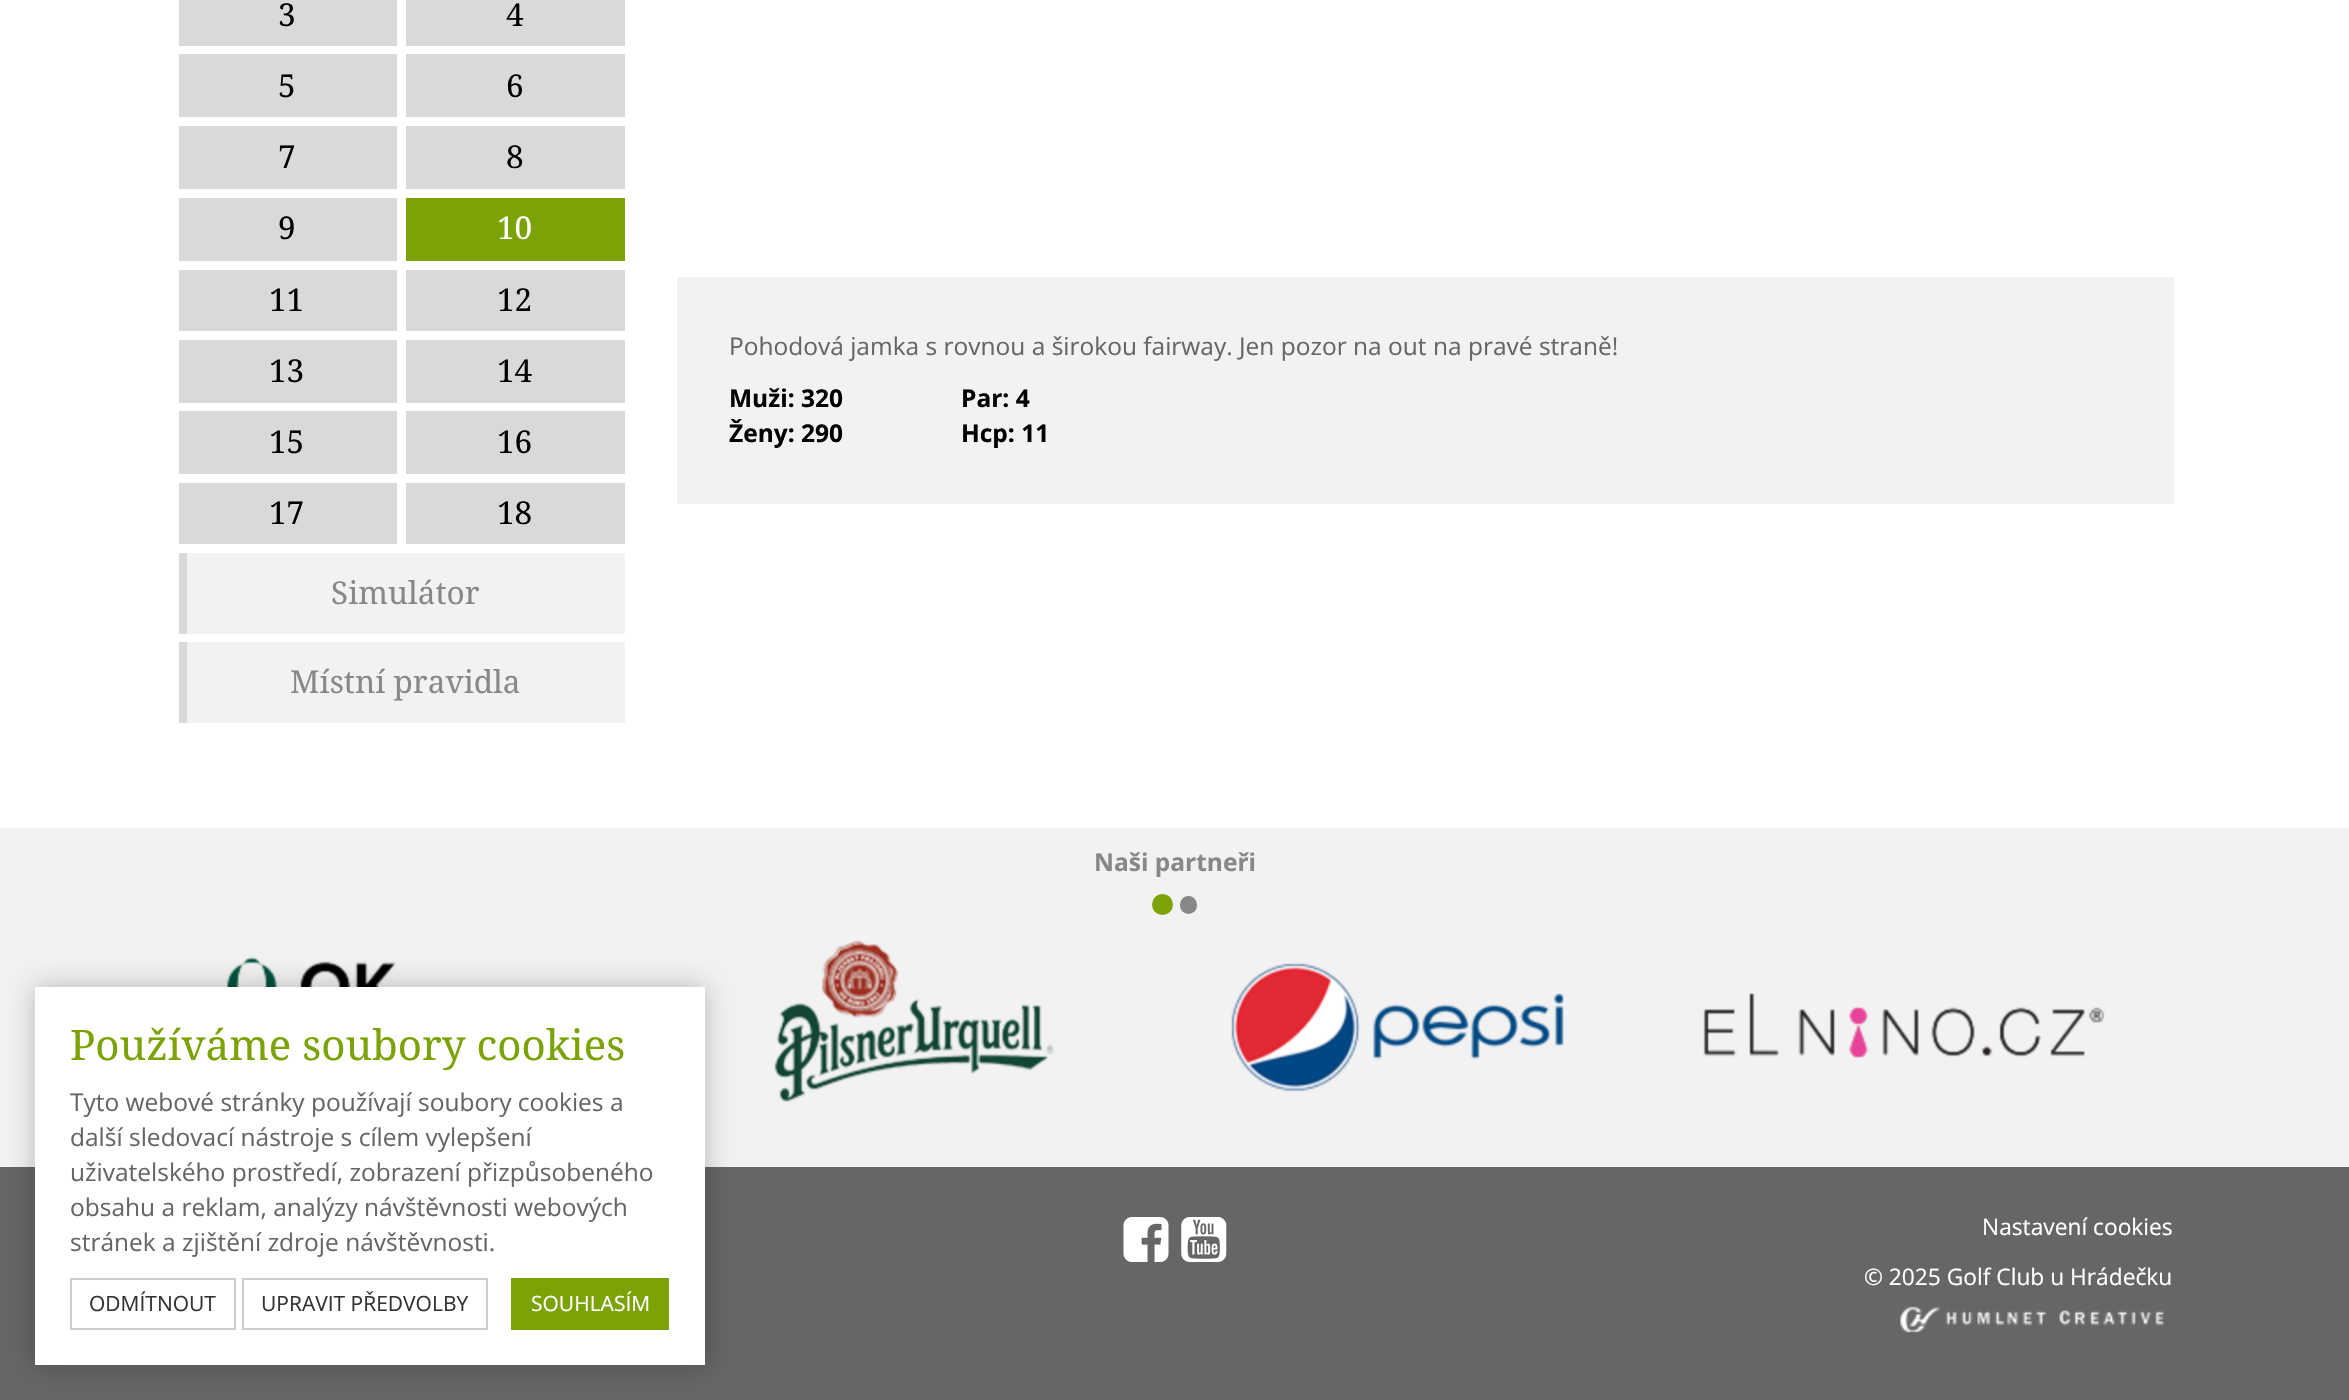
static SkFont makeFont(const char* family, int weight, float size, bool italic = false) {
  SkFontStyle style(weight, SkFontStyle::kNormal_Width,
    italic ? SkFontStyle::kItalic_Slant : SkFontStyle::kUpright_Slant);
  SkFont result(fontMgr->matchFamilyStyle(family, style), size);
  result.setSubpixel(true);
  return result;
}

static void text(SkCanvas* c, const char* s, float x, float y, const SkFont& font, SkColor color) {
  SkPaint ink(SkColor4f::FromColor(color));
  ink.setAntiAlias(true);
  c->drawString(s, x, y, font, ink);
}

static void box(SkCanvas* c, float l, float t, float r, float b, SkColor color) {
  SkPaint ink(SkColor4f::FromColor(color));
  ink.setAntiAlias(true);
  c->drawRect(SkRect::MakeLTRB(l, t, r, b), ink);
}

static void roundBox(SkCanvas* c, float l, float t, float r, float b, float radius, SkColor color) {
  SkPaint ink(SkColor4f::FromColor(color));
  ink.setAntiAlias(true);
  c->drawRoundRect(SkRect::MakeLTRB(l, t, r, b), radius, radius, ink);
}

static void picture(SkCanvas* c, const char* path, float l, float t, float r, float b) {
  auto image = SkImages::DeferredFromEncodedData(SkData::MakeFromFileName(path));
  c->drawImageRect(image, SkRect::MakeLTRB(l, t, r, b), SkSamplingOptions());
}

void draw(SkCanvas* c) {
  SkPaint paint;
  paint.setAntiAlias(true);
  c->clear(0xffffffff);
  box(c, 179, 0, 397, 46, 0xffd9d9d9);
  SkFont face1 = makeFont("Noto Serif", 400, 31.5f);
  text(c, "3", 278, 26, face1, 0xff000000);
  box(c, 406, 0, 625, 46, 0xffd9d9d9);
  text(c, "4", 506, 26, face1, 0xff000000);
  box(c, 179, 54, 397, 117, 0xffd9d9d9);
  text(c, "5", 278, 97, face1, 0xff000000);
  box(c, 406, 54, 625, 117, 0xffd9d9d9);
  text(c, "6", 506, 97, face1, 0xff000000);
  box(c, 179, 126, 397, 189, 0xffd9d9d9);
  text(c, "7", 278, 168, face1, 0xff000000);
  box(c, 406, 126, 625, 189, 0xffd9d9d9);
  text(c, "8", 506, 168, face1, 0xff000000);
  box(c, 179, 198, 397, 261, 0xffd9d9d9);
  text(c, "9", 278, 239, face1, 0xff000000);
  box(c, 406, 198, 625, 261, 0xff7ca306);
  text(c, "10", 497, 239, face1, 0xffffffff);
  box(c, 179, 270, 397, 331, 0xffd9d9d9);
  text(c, "11", 269, 311, face1, 0xff000000);
  box(c, 406, 270, 625, 331, 0xffd9d9d9);
  text(c, "12", 497, 311, face1, 0xff000000);
  box(c, 179, 340, 397, 403, 0xffd9d9d9);
  text(c, "13", 269, 382, face1, 0xff000000);
  box(c, 406, 340, 625, 403, 0xffd9d9d9);
  text(c, "14", 497, 382, face1, 0xff000000);
  box(c, 179, 411, 397, 474, 0xffd9d9d9);
  text(c, "15", 269, 453, face1, 0xff000000);
  box(c, 406, 411, 625, 474, 0xffd9d9d9);
  text(c, "16", 497, 453, face1, 0xff000000);
  box(c, 179, 483, 397, 544, 0xffd9d9d9);
  text(c, "17", 269, 524, face1, 0xff000000);
  box(c, 406, 483, 625, 544, 0xffd9d9d9);
  text(c, "18", 497, 524, face1, 0xff000000);
  box(c, 187, 553, 625, 634, 0xfff2f2f2);
  box(c, 179, 553, 187, 634, 0xffd9d9d9);
  text(c, "Simulátor", 331, 604, face1, 0xff888888);
  box(c, 187, 642, 625, 723, 0xfff2f2f2);
  box(c, 179, 642, 187, 723, 0xffd9d9d9);
  text(c, "Místní pravidla", 290, 693, face1, 0xff888888);
  box(c, 677, 277, 2174, 504, 0xfff2f2f2);
  SkFont face2 = makeFont("Open Sans", 400, 24.5f);
  text(c, "Pohodová jamka s rovnou a širokou fairway. Jen pozor na out na pravé straně!", 729, 355, face2, 0xff666666);
  SkFont face3 = makeFont("Open Sans", 700, 24.5f);
  text(c, "Muži: 320", 729, 407, face3, 0xff000000);
  text(c, "Ženy: 290", 729, 442, face3, 0xff000000);
  text(c, "Par: 4", 961, 407, face3, 0xff000000);
  text(c, "Hcp: 11", 961, 442, face3, 0xff000000);
  box(c, 0, 828, 2349, 1167, 0xfff2f2f2);
  text(c, "Naši partneři", 1094, 871, face3, 0xff888888);
  paint.setColor(0xff7ca306);
  c->drawCircle(1162.5f, 904.5f, 10.5f, paint);
  roundBox(c, 1180, 896, 1197, 914, 8.5f, 0xff888888);
  picture(c, "img_01.png", 226, 956, 397, 987);
  picture(c, "img_02.png", 774, 940, 1054, 1102);
  picture(c, "img_03.png", 1231, 963, 1564, 1092);
  picture(c, "img_04.png", 1703, 993, 2105, 1058);
  box(c, 0, 1167, 2349, 1400, 0xff666666);
  paint.setColor(0x40000000);
  paint.setMaskFilter(SkMaskFilter::MakeBlur(kNormal_SkBlurStyle, 13));
  c->drawRect(SkRect::MakeLTRB(35, 987, 705, 1365), paint);
  paint.setMaskFilter(nullptr);
  box(c, 35, 987, 705, 1365, 0xffffffff);
  SkFont face4 = makeFont("Noto Serif", 400, 42);
  text(c, "Používáme soubory cookies", 70, 1060, face4, 0xff7ca306);
  text(c, "Tyto webové stránky používají soubory cookies a", 70, 1111, face2, 0xff666666);
  text(c, "další sledovací nástroje s cílem vylepšení", 70, 1146, face2, 0xff666666);
  text(c, "uživatelského prostředí, zobrazení přizpůsobeného", 70, 1181, face2, 0xff666666);
  text(c, "obsahu a reklam, analýzy návštěvnosti webových", 70, 1216, face2, 0xff666666);
  text(c, "stránek a zjištění zdroje návštěvnosti.", 70, 1251, face2, 0xff666666);
  paint.setStyle(SkPaint::kStroke_Style);
  paint.setStrokeWidth(2);
  paint.setColor(0xffcccccc);
  c->drawRect(SkRect::MakeLTRB(71, 1279, 235, 1329), paint);
  SkFont face5 = makeFont("Open Sans", 400, 21);
  text(c, "ODMÍTNOUT", 89, 1311, face5, 0xff333333);
  c->drawRect(SkRect::MakeLTRB(243, 1279, 487, 1329), paint);
  text(c, "UPRAVIT PŘEDVOLBY", 261, 1311, face5, 0xff333333);
  box(c, 511, 1278, 669, 1330, 0xff7ca306);
  text(c, "SOUHLASÍM", 531, 1311, face5, 0xffffffff);
  picture(c, "img_05.png", 1123, 1217, 1169, 1262);
  picture(c, "img_06.png", 1181, 1217, 1227, 1262);
  SkFont face6 = makeFont("Open Sans", 400, 22.75f);
  text(c, "Nastavení cookies", 1982, 1235, face6, 0xffffffff);
  text(c, "© 2025 Golf Club u Hrádečku", 1864, 1285, face6, 0xffffffff);
  picture(c, "img_07.png", 1900, 1306, 2164, 1333);
}
